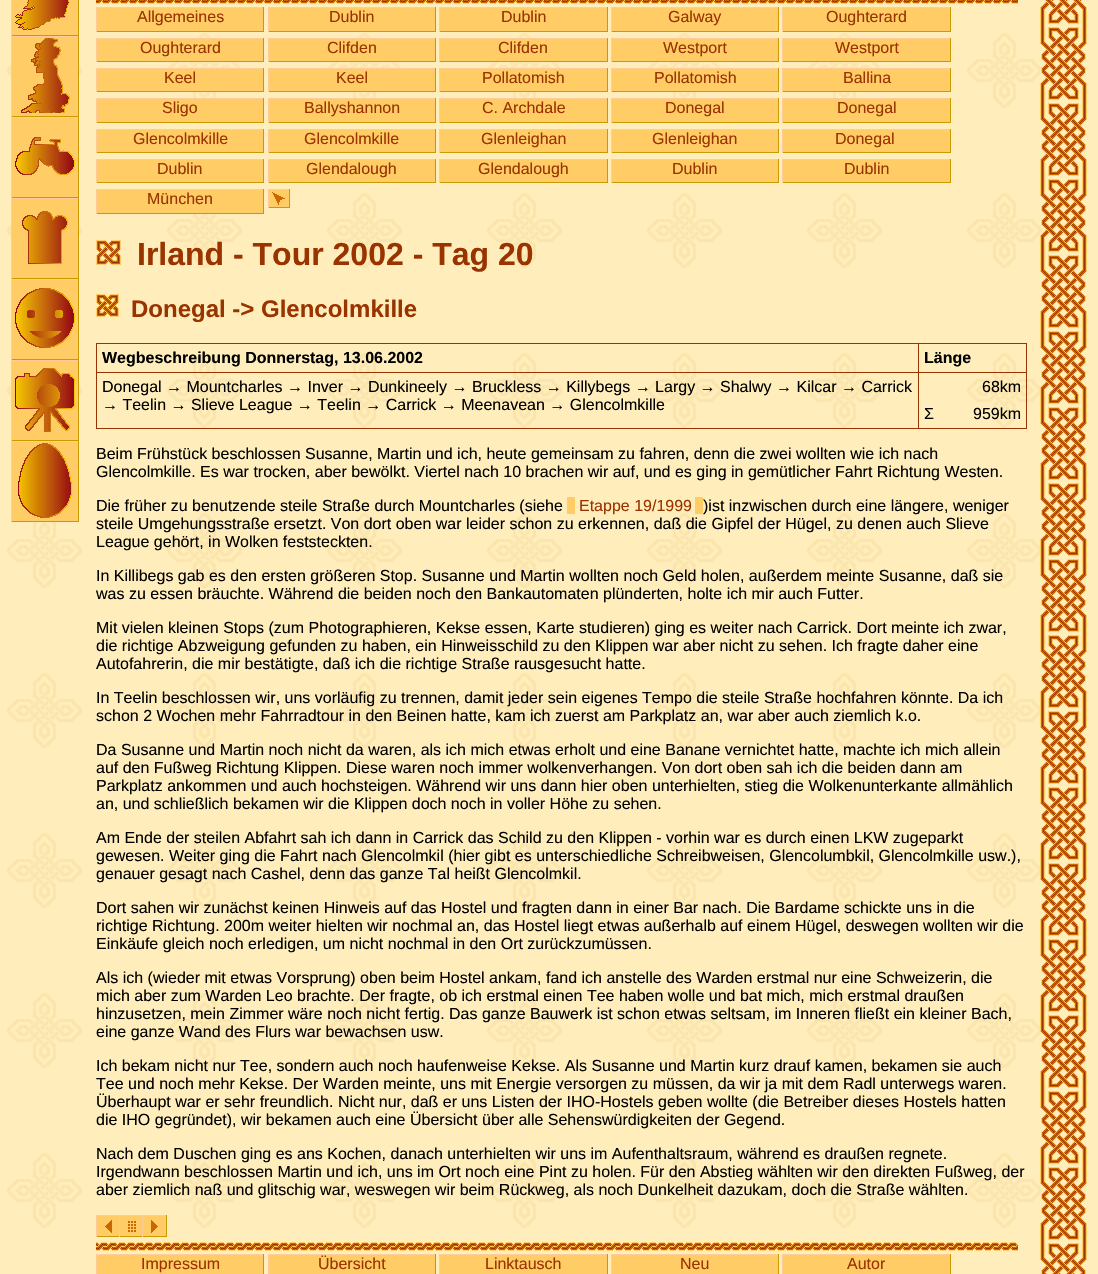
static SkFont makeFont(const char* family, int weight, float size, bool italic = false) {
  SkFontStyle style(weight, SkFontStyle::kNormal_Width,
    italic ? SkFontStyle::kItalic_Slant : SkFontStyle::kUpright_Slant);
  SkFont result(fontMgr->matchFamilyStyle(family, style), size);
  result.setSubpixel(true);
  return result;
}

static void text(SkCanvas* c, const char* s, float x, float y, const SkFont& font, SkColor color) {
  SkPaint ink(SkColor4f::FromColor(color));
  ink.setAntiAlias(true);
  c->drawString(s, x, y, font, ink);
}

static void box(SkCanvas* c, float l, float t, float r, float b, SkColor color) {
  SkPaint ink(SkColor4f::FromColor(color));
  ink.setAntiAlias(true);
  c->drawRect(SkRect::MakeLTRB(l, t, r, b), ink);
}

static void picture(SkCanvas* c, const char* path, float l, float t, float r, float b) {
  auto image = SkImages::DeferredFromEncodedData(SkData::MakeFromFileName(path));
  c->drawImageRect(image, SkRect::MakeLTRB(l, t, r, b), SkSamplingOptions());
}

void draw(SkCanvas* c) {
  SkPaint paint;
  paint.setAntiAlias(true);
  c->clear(0xffffeebb);
  picture(c, "img_01.png", 6, 32, 1043, 1229);
  picture(c, "img_02.png", 1040, 0, 1087, 1274);
  box(c, 12, 0, 78, 35, 0xffffcc66);
  box(c, 78, 0, 79, 36, 0xffcc9900);
  box(c, 11, 35, 79, 36, 0xffcc9900);
  box(c, 11, 0, 12, 36, 0xffffcc99);
  picture(c, "img_03.png", 15, 0, 70, 30);
  box(c, 12, 37, 78, 116, 0xffffcc66);
  box(c, 11, 36, 79, 37, 0xffffcc99);
  box(c, 78, 36, 79, 117, 0xffcc9900);
  box(c, 11, 116, 79, 117, 0xffcc9900);
  box(c, 11, 36, 12, 117, 0xffffcc99);
  picture(c, "img_04.png", 21, 38, 70, 113);
  box(c, 12, 118, 78, 197, 0xffffcc66);
  box(c, 11, 117, 79, 118, 0xffffcc99);
  box(c, 78, 117, 79, 198, 0xffcc9900);
  box(c, 11, 197, 79, 198, 0xffcc9900);
  box(c, 11, 117, 12, 198, 0xffffcc99);
  picture(c, "img_05.png", 15, 137, 75, 175);
  box(c, 12, 199, 78, 278, 0xffffcc66);
  box(c, 11, 198, 79, 199, 0xffffcc99);
  box(c, 78, 198, 79, 279, 0xffcc9900);
  box(c, 11, 278, 79, 279, 0xffcc9900);
  box(c, 11, 198, 12, 279, 0xffffcc99);
  picture(c, "img_06.png", 22, 211, 68, 264);
  box(c, 12, 280, 78, 359, 0xffffcc66);
  box(c, 11, 279, 79, 280, 0xffffcc99);
  box(c, 78, 279, 79, 360, 0xffcc9900);
  box(c, 11, 359, 79, 360, 0xffcc9900);
  box(c, 11, 279, 12, 360, 0xffffcc99);
  picture(c, "img_07.png", 15, 288, 75, 348);
  box(c, 12, 361, 78, 440, 0xffffcc66);
  box(c, 11, 360, 79, 361, 0xffffcc99);
  box(c, 78, 360, 79, 441, 0xffcc9900);
  box(c, 11, 440, 79, 441, 0xffcc9900);
  box(c, 11, 360, 12, 441, 0xffffcc99);
  picture(c, "img_08.png", 15, 368, 75, 432);
  box(c, 12, 442, 78, 521, 0xffffcc66);
  box(c, 11, 441, 79, 442, 0xffffcc99);
  box(c, 78, 441, 79, 522, 0xffcc9900);
  box(c, 11, 521, 79, 522, 0xffcc9900);
  box(c, 11, 441, 12, 522, 0xffffcc99);
  picture(c, "img_09.png", 18, 443, 72, 518);
  picture(c, "img_10.png", 96, 0, 1018, 4);
  box(c, 97, 8, 263, 31, 0xffffcc66);
  box(c, 96, 7, 264, 8, 0xffffcc99);
  box(c, 263, 7, 264, 32, 0xffcc9900);
  box(c, 96, 31, 264, 32, 0xffcc9900);
  box(c, 96, 7, 97, 32, 0xffffcc99);
  SkFont face1 = makeFont("Liberation Sans", 400, 16);
  text(c, "Allgemeines", 137, 22, face1, 0xff993300);
  box(c, 269, 8, 435, 31, 0xffffcc66);
  box(c, 268, 7, 436, 8, 0xffffcc99);
  box(c, 435, 7, 436, 32, 0xffcc9900);
  box(c, 268, 31, 436, 32, 0xffcc9900);
  box(c, 268, 7, 269, 32, 0xffffcc99);
  text(c, "Dublin", 329, 22, face1, 0xff993300);
  box(c, 440, 8, 607, 31, 0xffffcc66);
  box(c, 439, 7, 608, 8, 0xffffcc99);
  box(c, 607, 7, 608, 32, 0xffcc9900);
  box(c, 439, 31, 608, 32, 0xffcc9900);
  box(c, 439, 7, 440, 32, 0xffffcc99);
  text(c, "Dublin", 501, 22, face1, 0xff993300);
  box(c, 612, 8, 778, 31, 0xffffcc66);
  box(c, 611, 7, 779, 8, 0xffffcc99);
  box(c, 778, 7, 779, 32, 0xffcc9900);
  box(c, 611, 31, 779, 32, 0xffcc9900);
  box(c, 611, 7, 612, 32, 0xffffcc99);
  text(c, "Galway", 668, 22, face1, 0xff993300);
  box(c, 783, 8, 950, 31, 0xffffcc66);
  box(c, 782, 7, 951, 8, 0xffffcc99);
  box(c, 950, 7, 951, 32, 0xffcc9900);
  box(c, 782, 31, 951, 32, 0xffcc9900);
  box(c, 782, 7, 783, 32, 0xffffcc99);
  text(c, "Oughterard", 826, 22, face1, 0xff993300);
  box(c, 97, 39, 263, 61, 0xffffcc66);
  box(c, 96, 38, 264, 39, 0xffffcc99);
  box(c, 263, 38, 264, 62, 0xffcc9900);
  box(c, 96, 61, 264, 62, 0xffcc9900);
  box(c, 96, 38, 97, 62, 0xffffcc99);
  text(c, "Oughterard", 140, 53, face1, 0xff993300);
  box(c, 269, 39, 435, 61, 0xffffcc66);
  box(c, 268, 38, 436, 39, 0xffffcc99);
  box(c, 435, 38, 436, 62, 0xffcc9900);
  box(c, 268, 61, 436, 62, 0xffcc9900);
  box(c, 268, 38, 269, 62, 0xffffcc99);
  text(c, "Clifden", 327, 53, face1, 0xff993300);
  box(c, 440, 39, 607, 61, 0xffffcc66);
  box(c, 439, 38, 608, 39, 0xffffcc99);
  box(c, 607, 38, 608, 62, 0xffcc9900);
  box(c, 439, 61, 608, 62, 0xffcc9900);
  box(c, 439, 38, 440, 62, 0xffffcc99);
  text(c, "Clifden", 498, 53, face1, 0xff993300);
  box(c, 612, 39, 778, 61, 0xffffcc66);
  box(c, 611, 38, 779, 39, 0xffffcc99);
  box(c, 778, 38, 779, 62, 0xffcc9900);
  box(c, 611, 61, 779, 62, 0xffcc9900);
  box(c, 611, 38, 612, 62, 0xffffcc99);
  text(c, "Westport", 663, 53, face1, 0xff993300);
  box(c, 783, 39, 950, 61, 0xffffcc66);
  box(c, 782, 38, 951, 39, 0xffffcc99);
  box(c, 950, 38, 951, 62, 0xffcc9900);
  box(c, 782, 61, 951, 62, 0xffcc9900);
  box(c, 782, 38, 783, 62, 0xffffcc99);
  text(c, "Westport", 835, 53, face1, 0xff993300);
  box(c, 97, 69, 263, 91, 0xffffcc66);
  box(c, 96, 68, 264, 69, 0xffffcc99);
  box(c, 263, 68, 264, 92, 0xffcc9900);
  box(c, 96, 91, 264, 92, 0xffcc9900);
  box(c, 96, 68, 97, 92, 0xffffcc99);
  text(c, "Keel", 164, 83, face1, 0xff993300);
  box(c, 269, 69, 435, 91, 0xffffcc66);
  box(c, 268, 68, 436, 69, 0xffffcc99);
  box(c, 435, 68, 436, 92, 0xffcc9900);
  box(c, 268, 91, 436, 92, 0xffcc9900);
  box(c, 268, 68, 269, 92, 0xffffcc99);
  text(c, "Keel", 336, 83, face1, 0xff993300);
  box(c, 440, 69, 607, 91, 0xffffcc66);
  box(c, 439, 68, 608, 69, 0xffffcc99);
  box(c, 607, 68, 608, 92, 0xffcc9900);
  box(c, 439, 91, 608, 92, 0xffcc9900);
  box(c, 439, 68, 440, 92, 0xffffcc99);
  text(c, "Pollatomish", 482, 83, face1, 0xff993300);
  box(c, 612, 69, 778, 91, 0xffffcc66);
  box(c, 611, 68, 779, 69, 0xffffcc99);
  box(c, 778, 68, 779, 92, 0xffcc9900);
  box(c, 611, 91, 779, 92, 0xffcc9900);
  box(c, 611, 68, 612, 92, 0xffffcc99);
  text(c, "Pollatomish", 654, 83, face1, 0xff993300);
  box(c, 783, 69, 950, 91, 0xffffcc66);
  box(c, 782, 68, 951, 69, 0xffffcc99);
  box(c, 950, 68, 951, 92, 0xffcc9900);
  box(c, 782, 91, 951, 92, 0xffcc9900);
  box(c, 782, 68, 783, 92, 0xffffcc99);
  text(c, "Ballina", 843, 83, face1, 0xff993300);
  box(c, 97, 99, 263, 122, 0xffffcc66);
  box(c, 96, 98, 264, 99, 0xffffcc99);
  box(c, 263, 98, 264, 123, 0xffcc9900);
  box(c, 96, 122, 264, 123, 0xffcc9900);
  box(c, 96, 98, 97, 123, 0xffffcc99);
  text(c, "Sligo", 162, 113, face1, 0xff993300);
  box(c, 269, 99, 435, 122, 0xffffcc66);
  box(c, 268, 98, 436, 99, 0xffffcc99);
  box(c, 435, 98, 436, 123, 0xffcc9900);
  box(c, 268, 122, 436, 123, 0xffcc9900);
  box(c, 268, 98, 269, 123, 0xffffcc99);
  text(c, "Ballyshannon", 304, 113, face1, 0xff993300);
  box(c, 440, 99, 607, 122, 0xffffcc66);
  box(c, 439, 98, 608, 99, 0xffffcc99);
  box(c, 607, 98, 608, 123, 0xffcc9900);
  box(c, 439, 122, 608, 123, 0xffcc9900);
  box(c, 439, 98, 440, 123, 0xffffcc99);
  text(c, "C. Archdale", 482, 113, face1, 0xff993300);
  box(c, 612, 99, 778, 122, 0xffffcc66);
  box(c, 611, 98, 779, 99, 0xffffcc99);
  box(c, 778, 98, 779, 123, 0xffcc9900);
  box(c, 611, 122, 779, 123, 0xffcc9900);
  box(c, 611, 98, 612, 123, 0xffffcc99);
  text(c, "Donegal", 665, 113, face1, 0xff993300);
  box(c, 783, 99, 950, 122, 0xffffcc66);
  box(c, 782, 98, 951, 99, 0xffffcc99);
  box(c, 950, 98, 951, 123, 0xffcc9900);
  box(c, 782, 122, 951, 123, 0xffcc9900);
  box(c, 782, 98, 783, 123, 0xffffcc99);
  text(c, "Donegal", 837, 113, face1, 0xff993300);
  box(c, 97, 130, 263, 152, 0xffffcc66);
  box(c, 96, 129, 264, 130, 0xffffcc99);
  box(c, 263, 129, 264, 153, 0xffcc9900);
  box(c, 96, 152, 264, 153, 0xffcc9900);
  box(c, 96, 129, 97, 153, 0xffffcc99);
  text(c, "Glencolmkille", 133, 144, face1, 0xff993300);
  box(c, 269, 130, 435, 152, 0xffffcc66);
  box(c, 268, 129, 436, 130, 0xffffcc99);
  box(c, 435, 129, 436, 153, 0xffcc9900);
  box(c, 268, 152, 436, 153, 0xffcc9900);
  box(c, 268, 129, 269, 153, 0xffffcc99);
  text(c, "Glencolmkille", 304, 144, face1, 0xff993300);
  box(c, 440, 130, 607, 152, 0xffffcc66);
  box(c, 439, 129, 608, 130, 0xffffcc99);
  box(c, 607, 129, 608, 153, 0xffcc9900);
  box(c, 439, 152, 608, 153, 0xffcc9900);
  box(c, 439, 129, 440, 153, 0xffffcc99);
  text(c, "Glenleighan", 481, 144, face1, 0xff993300);
  box(c, 612, 130, 778, 152, 0xffffcc66);
  box(c, 611, 129, 779, 130, 0xffffcc99);
  box(c, 778, 129, 779, 153, 0xffcc9900);
  box(c, 611, 152, 779, 153, 0xffcc9900);
  box(c, 611, 129, 612, 153, 0xffffcc99);
  text(c, "Glenleighan", 652, 144, face1, 0xff993300);
  box(c, 783, 130, 950, 152, 0xffffcc66);
  box(c, 782, 129, 951, 130, 0xffffcc99);
  box(c, 950, 129, 951, 153, 0xffcc9900);
  box(c, 782, 152, 951, 153, 0xffcc9900);
  box(c, 782, 129, 783, 153, 0xffffcc99);
  text(c, "Donegal", 835, 144, face1, 0xff993300);
  box(c, 97, 160, 263, 182, 0xffffcc66);
  box(c, 96, 159, 264, 160, 0xffffcc99);
  box(c, 263, 159, 264, 183, 0xffcc9900);
  box(c, 96, 182, 264, 183, 0xffcc9900);
  box(c, 96, 159, 97, 183, 0xffffcc99);
  text(c, "Dublin", 157, 174, face1, 0xff993300);
  box(c, 269, 160, 435, 182, 0xffffcc66);
  box(c, 268, 159, 436, 160, 0xffffcc99);
  box(c, 435, 159, 436, 183, 0xffcc9900);
  box(c, 268, 182, 436, 183, 0xffcc9900);
  box(c, 268, 159, 269, 183, 0xffffcc99);
  text(c, "Glendalough", 306, 174, face1, 0xff993300);
  box(c, 440, 160, 607, 182, 0xffffcc66);
  box(c, 439, 159, 608, 160, 0xffffcc99);
  box(c, 607, 159, 608, 183, 0xffcc9900);
  box(c, 439, 182, 608, 183, 0xffcc9900);
  box(c, 439, 159, 440, 183, 0xffffcc99);
  text(c, "Glendalough", 478, 174, face1, 0xff993300);
  box(c, 612, 160, 778, 182, 0xffffcc66);
  box(c, 611, 159, 779, 160, 0xffffcc99);
  box(c, 778, 159, 779, 183, 0xffcc9900);
  box(c, 611, 182, 779, 183, 0xffcc9900);
  box(c, 611, 159, 612, 183, 0xffffcc99);
  text(c, "Dublin", 672, 174, face1, 0xff993300);
  box(c, 783, 160, 950, 182, 0xffffcc66);
  box(c, 782, 159, 951, 160, 0xffffcc99);
  box(c, 950, 159, 951, 183, 0xffcc9900);
  box(c, 782, 182, 951, 183, 0xffcc9900);
  box(c, 782, 159, 783, 183, 0xffffcc99);
  text(c, "Dublin", 844, 174, face1, 0xff993300);
  box(c, 97, 190, 263, 213, 0xffffcc66);
  box(c, 96, 189, 264, 190, 0xffffcc99);
  box(c, 263, 189, 264, 214, 0xffcc9900);
  box(c, 96, 213, 264, 214, 0xffcc9900);
  box(c, 96, 189, 97, 214, 0xffffcc99);
  text(c, "München", 147, 204, face1, 0xff993300);
  box(c, 268, 189, 290, 190, 0xffffcc99);
  box(c, 289, 189, 290, 208, 0xffcc9900);
  box(c, 268, 207, 290, 208, 0xffcc9900);
  box(c, 268, 189, 269, 208, 0xffffcc99);
  box(c, 269, 190, 289, 207, 0xffffcc66);
  picture(c, "img_11.png", 272, 192, 285, 205);
  picture(c, "img_12.png", 96, 240, 121, 265);
  SkFont face2 = makeFont("Liberation Sans", 700, 32);
  text(c, "Irland - Tour 2002 - Tag 20", 137, 265, face2, 0xff993300);
  picture(c, "img_13.png", 96, 294, 119, 317);
  SkFont face3 = makeFont("Liberation Sans", 700, 24);
  text(c, "Donegal -> Glencolmkille", 131, 317, face3, 0xff993300);
  box(c, 96, 343, 1027, 344, 0xff993300);
  box(c, 1026, 343, 1027, 429, 0xff993300);
  box(c, 96, 428, 1027, 429, 0xff993300);
  box(c, 96, 343, 97, 429, 0xff993300);
  box(c, 918, 372, 919, 429, 0xff993300);
  box(c, 918, 372, 1027, 373, 0xff993300);
  box(c, 918, 343, 919, 373, 0xff993300);
  box(c, 96, 372, 919, 373, 0xff993300);
  SkFont face4 = makeFont("Liberation Sans", 700, 16);
  text(c, "Wegbeschreibung Donnerstag, 13.06.2002", 102, 363, face4, 0xff000000);
  text(c, "Länge", 924, 363, face4, 0xff000000);
  text(c, "Donegal → Mountcharles → Inver → Dunkineely → Bruckless → Killybegs → Largy → Shalwy → Kilcar → Carrick", 102, 392, face1, 0xff000000);
  text(c, "→ Teelin → Slieve League → Teelin → Carrick → Meenavean → Glencolmkille", 102, 410, face1, 0xff000000);
  text(c, "68km", 982, 392, face1, 0xff000000);
  text(c, "Σ", 924, 419, face1, 0xff000000);
  text(c, "959km", 973, 419, face1, 0xff000000);
  text(c, "Beim Frühstück beschlossen Susanne, Martin und ich, heute gemeinsam zu fahren, denn die zwei wollten wie ich nach", 96, 459, face1, 0xff000000);
  text(c, "Glencolmkille. Es war trocken, aber bewölkt. Viertel nach 10 brachen wir auf, und es ging in gemütlicher Fahrt Richtung Westen.", 96, 477, face1, 0xff000000);
  text(c, "Die früher zu benutzende steile Straße durch Mountcharles (siehe", 96, 511, face1, 0xff000000);
  text(c, "Etappe 19/1999", 579, 511, face1, 0xff993300);
  box(c, 695, 497, 703, 514, 0xffffcc66);
  box(c, 567, 497, 575, 514, 0xffffcc66);
  text(c, ")ist inzwischen durch eine längere, weniger", 703, 511, face1, 0xff000000);
  text(c, "steile Umgehungsstraße ersetzt. Von dort oben war leider schon zu erkennen, daß die Gipfel der Hügel, zu denen auch Slieve", 96, 529, face1, 0xff000000);
  text(c, "League gehört, in Wolken feststeckten.", 96, 547, face1, 0xff000000);
  text(c, "In Killibegs gab es den ersten größeren Stop. Susanne und Martin wollten noch Geld holen, außerdem meinte Susanne, daß sie", 96, 581, face1, 0xff000000);
  text(c, "was zu essen bräuchte. Während die beiden noch den Bankautomaten plünderten, holte ich mir auch Futter.", 96, 599, face1, 0xff000000);
  text(c, "Mit vielen kleinen Stops (zum Photographieren, Kekse essen, Karte studieren) ging es weiter nach Carrick. Dort meinte ich zwar,", 96, 633, face1, 0xff000000);
  text(c, "die richtige Abzweigung gefunden zu haben, ein Hinweisschild zu den Klippen war aber nicht zu sehen. Ich fragte daher eine", 96, 651, face1, 0xff000000);
  text(c, "Autofahrerin, die mir bestätigte, daß ich die richtige Straße rausgesucht hatte.", 96, 669, face1, 0xff000000);
  text(c, "In Teelin beschlossen wir, uns vorläufig zu trennen, damit jeder sein eigenes Tempo die steile Straße hochfahren könnte. Da ich", 96, 703, face1, 0xff000000);
  text(c, "schon 2 Wochen mehr Fahrradtour in den Beinen hatte, kam ich zuerst am Parkplatz an, war aber auch ziemlich k.o.", 96, 721, face1, 0xff000000);
  text(c, "Da Susanne und Martin noch nicht da waren, als ich mich etwas erholt und eine Banane vernichtet hatte, machte ich mich allein", 96, 755, face1, 0xff000000);
  text(c, "auf den Fußweg Richtung Klippen. Diese waren noch immer wolkenverhangen. Von dort oben sah ich die beiden dann am", 96, 773, face1, 0xff000000);
  text(c, "Parkplatz ankommen und auch hochsteigen. Während wir uns dann hier oben unterhielten, stieg die Wolkenunterkante allmählich", 96, 791, face1, 0xff000000);
  text(c, "an, und schließlich bekamen wir die Klippen doch noch in voller Höhe zu sehen.", 96, 809, face1, 0xff000000);
  text(c, "Am Ende der steilen Abfahrt sah ich dann in Carrick das Schild zu den Klippen - vorhin war es durch einen LKW zugeparkt", 96, 843, face1, 0xff000000);
  text(c, "gewesen. Weiter ging die Fahrt nach Glencolmkil (hier gibt es unterschiedliche Schreibweisen, Glencolumbkil, Glencolmkille usw.),", 96, 861, face1, 0xff000000);
  text(c, "genauer gesagt nach Cashel, denn das ganze Tal heißt Glencolmkil.", 96, 879, face1, 0xff000000);
  text(c, "Dort sahen wir zunächst keinen Hinweis auf das Hostel und fragten dann in einer Bar nach. Die Bardame schickte uns in die", 96, 913, face1, 0xff000000);
  text(c, "richtige Richtung. 200m weiter hielten wir nochmal an, das Hostel liegt etwas außerhalb auf einem Hügel, deswegen wollten wir die", 96, 931, face1, 0xff000000);
  text(c, "Einkäufe gleich noch erledigen, um nicht nochmal in den Ort zurückzumüssen.", 96, 949, face1, 0xff000000);
  text(c, "Als ich (wieder mit etwas Vorsprung) oben beim Hostel ankam, fand ich anstelle des Warden erstmal nur eine Schweizerin, die", 96, 983, face1, 0xff000000);
  text(c, "mich aber zum Warden Leo brachte. Der fragte, ob ich erstmal einen Tee haben wolle und bat mich, mich erstmal draußen", 96, 1001, face1, 0xff000000);
  text(c, "hinzusetzen, mein Zimmer wäre noch nicht fertig. Das ganze Bauwerk ist schon etwas seltsam, im Inneren fließt ein kleiner Bach,", 96, 1019, face1, 0xff000000);
  text(c, "eine ganze Wand des Flurs war bewachsen usw.", 96, 1037, face1, 0xff000000);
  text(c, "Ich bekam nicht nur Tee, sondern auch noch haufenweise Kekse. Als Susanne und Martin kurz drauf kamen, bekamen sie auch", 96, 1071, face1, 0xff000000);
  text(c, "Tee und noch mehr Kekse. Der Warden meinte, uns mit Energie versorgen zu müssen, da wir ja mit dem Radl unterwegs waren.", 96, 1089, face1, 0xff000000);
  text(c, "Überhaupt war er sehr freundlich. Nicht nur, daß er uns Listen der IHO-Hostels geben wollte (die Betreiber dieses Hostels hatten", 96, 1107, face1, 0xff000000);
  text(c, "die IHO gegründet), wir bekamen auch eine Übersicht über alle Sehenswürdigkeiten der Gegend.", 96, 1125, face1, 0xff000000);
  text(c, "Nach dem Duschen ging es ans Kochen, danach unterhielten wir uns im Aufenthaltsraum, während es draußen regnete.", 96, 1159, face1, 0xff000000);
  text(c, "Irgendwann beschlossen Martin und ich, uns im Ort noch eine Pint zu holen. Für den Abstieg wählten wir den direkten Fußweg, der", 96, 1177, face1, 0xff000000);
  text(c, "aber ziemlich naß und glitschig war, weswegen wir beim Rückweg, als noch Dunkelheit dazukam, doch die Straße wählten.", 96, 1195, face1, 0xff000000);
  box(c, 97, 1216, 119, 1236, 0xffffcc66);
  box(c, 96, 1215, 167, 1216, 0xffffcc99);
  box(c, 96, 1236, 144, 1237, 0xffcc9900);
  box(c, 96, 1215, 97, 1237, 0xffffcc99);
  picture(c, "img_14.png", 105, 1220, 112, 1233);
  box(c, 120, 1216, 142, 1236, 0xffffcc66);
  box(c, 119, 1215, 120, 1237, 0xffffcc99);
  picture(c, "img_15.png", 128, 1221, 136, 1232);
  box(c, 143, 1216, 166, 1236, 0xffffcc66);
  box(c, 166, 1215, 167, 1237, 0xffcc9900);
  box(c, 142, 1236, 167, 1237, 0xffcc9900);
  box(c, 142, 1215, 143, 1237, 0xffffcc99);
  picture(c, "img_16.png", 151, 1220, 158, 1233);
  picture(c, "img_17.png", 96, 1242, 1018, 1251);
  box(c, 97, 1255, 263, 1274, 0xffffcc66);
  box(c, 96, 1254, 264, 1255, 0xffffcc99);
  box(c, 263, 1254, 264, 1274, 0xffcc9900);
  box(c, 96, 1254, 97, 1274, 0xffffcc99);
  text(c, "Impressum", 141, 1269, face1, 0xff993300);
  box(c, 269, 1255, 435, 1274, 0xffffcc66);
  box(c, 268, 1254, 436, 1255, 0xffffcc99);
  box(c, 435, 1254, 436, 1274, 0xffcc9900);
  box(c, 268, 1254, 269, 1274, 0xffffcc99);
  text(c, "Übersicht", 318, 1269, face1, 0xff993300);
  box(c, 440, 1255, 607, 1274, 0xffffcc66);
  box(c, 439, 1254, 608, 1255, 0xffffcc99);
  box(c, 607, 1254, 608, 1274, 0xffcc9900);
  box(c, 439, 1254, 440, 1274, 0xffffcc99);
  text(c, "Linktausch", 485, 1269, face1, 0xff993300);
  box(c, 612, 1255, 778, 1274, 0xffffcc66);
  box(c, 611, 1254, 779, 1255, 0xffffcc99);
  box(c, 778, 1254, 779, 1274, 0xffcc9900);
  box(c, 611, 1254, 612, 1274, 0xffffcc99);
  text(c, "Neu", 680, 1269, face1, 0xff993300);
  box(c, 783, 1255, 950, 1274, 0xffffcc66);
  box(c, 782, 1254, 951, 1255, 0xffffcc99);
  box(c, 950, 1254, 951, 1274, 0xffcc9900);
  box(c, 782, 1254, 783, 1274, 0xffffcc99);
  text(c, "Autor", 847, 1269, face1, 0xff993300);
}
